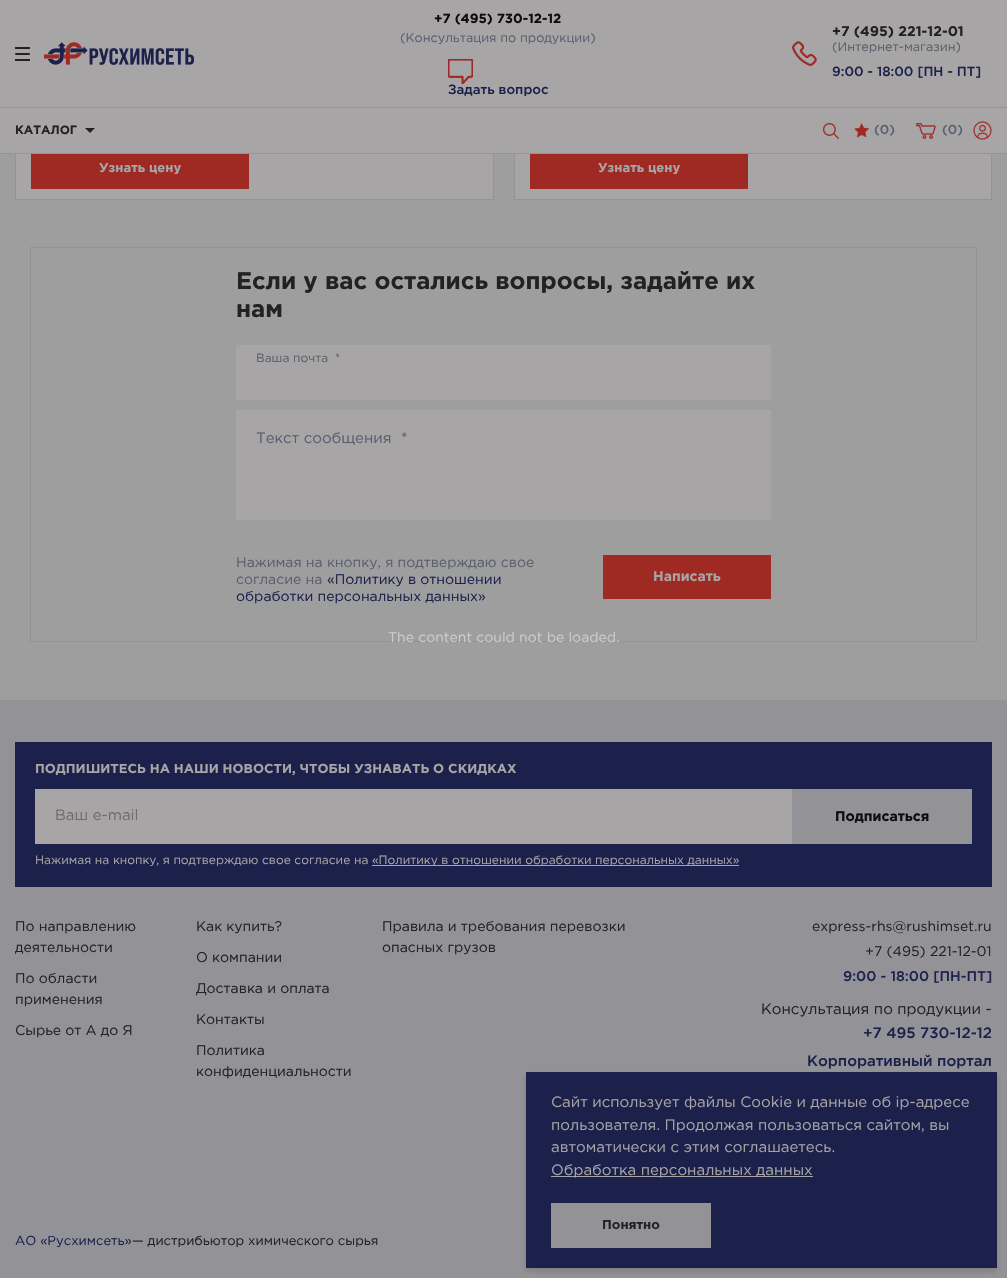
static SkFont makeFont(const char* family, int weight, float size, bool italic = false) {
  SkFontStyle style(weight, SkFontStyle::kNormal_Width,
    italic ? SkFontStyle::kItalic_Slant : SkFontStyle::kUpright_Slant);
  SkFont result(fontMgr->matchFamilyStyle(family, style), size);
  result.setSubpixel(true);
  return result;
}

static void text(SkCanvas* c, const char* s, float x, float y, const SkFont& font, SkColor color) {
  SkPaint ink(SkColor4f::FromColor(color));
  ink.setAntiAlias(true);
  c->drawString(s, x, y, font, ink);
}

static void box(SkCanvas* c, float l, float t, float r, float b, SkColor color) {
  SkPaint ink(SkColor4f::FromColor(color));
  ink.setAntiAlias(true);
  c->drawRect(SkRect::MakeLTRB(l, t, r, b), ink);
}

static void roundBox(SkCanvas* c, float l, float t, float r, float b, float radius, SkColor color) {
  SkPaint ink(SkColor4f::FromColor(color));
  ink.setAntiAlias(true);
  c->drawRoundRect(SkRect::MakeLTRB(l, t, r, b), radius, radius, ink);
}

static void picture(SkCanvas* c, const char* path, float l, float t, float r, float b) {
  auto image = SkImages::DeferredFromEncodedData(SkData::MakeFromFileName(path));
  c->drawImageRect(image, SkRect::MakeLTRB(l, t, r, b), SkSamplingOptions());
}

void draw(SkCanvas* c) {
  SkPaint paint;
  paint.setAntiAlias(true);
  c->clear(0xff9e9e9f);
  box(c, 16, 154, 493, 199, 0xffa7a5a6);
  paint.setStyle(SkPaint::kStroke_Style);
  paint.setStrokeWidth(1);
  paint.setColor(0xff939397);
  c->drawRect(SkRect::MakeLTRB(15.5f, -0.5f, 493.5f, 199.5f), paint);
  box(c, 515, 154, 991, 199, 0xffa7a5a6);
  c->drawRect(SkRect::MakeLTRB(514.5f, -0.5f, 991.5f, 199.5f), paint);
  box(c, 0, 0, 1007, 153, 0xffa7a5a6);
  roundBox(c, 15, 53, 30, 55, 1, 0xff232122);
  box(c, 15, 47, 30, 49, 0xff232122);
  box(c, 15, 59, 30, 61, 0xff232122);
  picture(c, "img_01.png", 44, 42, 194, 65);
  SkFont face1 = makeFont("Gotham", 700, 13.25f);
  text(c, "+7 (495) 730-12-12", 434, 23, face1, 0xff0e0c0d);
  SkFont face2 = makeFont("Gotham", 400, 12.6f);
  text(c, "(Консультация по продукции)", 400, 42, face2, 0xff5a5f6c);
  picture(c, "img_02.png", 448, 59, 473, 84);
  SkFont face3 = makeFont("Gotham", 500, 13.25f);
  text(c, "Задать вопрос", 448, 94, face3, 0xff1b214b);
  picture(c, "img_03.png", 792, 41, 817, 66);
  SkFont face4 = makeFont("Gotham", 700, 14);
  text(c, "+7 (495) 221-12-01", 832, 36, face4, 0xff232122);
  text(c, "(Интернет-магазин)", 832, 51, face2, 0xff5a5f6c);
  text(c, "9:00 - 18:00 [ПН - ПТ]", 832, 76, face3, 0xff1b214b);
  box(c, 0, 107, 1007, 108, 0xff939397);
  box(c, 0, 153, 1007, 154, 0xff939397);
  SkFont face5 = makeFont("Gotham", 700, 12);
  text(c, "КАТАЛОГ", 15, 134, face5, 0xff232122);
  paint.setStyle(SkPaint::kFill_Style);
  paint.setColor(0xff232122);
  c->drawPath(SkPathBuilder().moveTo(85, 128).lineTo(95, 128).lineTo(90, 133).close().detach(), paint);
  picture(c, "img_04.png", 823, 123, 839, 139);
  picture(c, "img_05.png", 854, 123, 869, 138);
  SkFont face6 = makeFont("Gotham", 500, 13);
  text(c, "(0)", 874, 134, face6, 0xff5a5f6c);
  picture(c, "img_06.png", 916, 123, 936, 139);
  text(c, "(0)", 942, 134, face6, 0xff5a5f6c);
  picture(c, "img_07.png", 973, 121, 992, 140);
  box(c, 31, 154, 249, 189, 0xff9f2a24);
  SkFont face7 = makeFont("Gotham", 700, 13);
  text(c, "Узнать цену", 99, 172, face7, 0xffa7a5a6);
  box(c, 530, 154, 748, 189, 0xff9f2a24);
  text(c, "Узнать цену", 598, 172, face7, 0xffa7a5a6);
  paint.setStyle(SkPaint::kStroke_Style);
  paint.setColor(0xff939397);
  c->drawRect(SkRect::MakeLTRB(30.5f, 247.5f, 976.5f, 641.5f), paint);
  SkFont face8 = makeFont("Gotham", 700, 24);
  text(c, "Если у вас остались вопросы, задайте их", 236, 289, face8, 0xff232122);
  text(c, "нам", 236, 317, face8, 0xff232122);
  box(c, 236, 345, 771, 400, 0xffa7a5a6);
  SkFont face9 = makeFont("Gotham", 400, 12);
  text(c, "Ваша почта", 256, 362, face9, 0xff5a5f6c);
  text(c, "*", 335, 362, face9, 0xff5a5f6c);
  box(c, 236, 410, 771, 520, 0xffa7a5a6);
  SkFont face10 = makeFont("Gotham", 400, 15);
  text(c, "Текст сообщения", 256, 443, face10, 0xff5a5f6c);
  text(c, "*", 401, 443, face10, 0xff5a5f6c);
  SkFont face11 = makeFont("Gotham", 400, 14);
  text(c, "Нажимая на кнопку, я подтверждаю свое", 236, 567, face11, 0xff5a5f6c);
  text(c, "согласие на", 236, 584, face11, 0xff5a5f6c);
  text(c, "«Политику в отношении", 327, 584, face11, 0xff1b214b);
  text(c, "обработки персональных данных»", 236, 601, face11, 0xff1b214b);
  box(c, 603, 555, 771, 599, 0xff9f2a24);
  text(c, "Написать", 653, 581, face4, 0xffa7a5a6);
  text(c, "The content could not be loaded.", 388, 642, face11, 0xffcccccc);
  box(c, 0, 700, 1007, 1278, 0xff939397);
  box(c, 15, 742, 992, 887, 0xff1b214b);
  text(c, "ПОДПИШИТЕСЬ НА НАШИ НОВОСТИ, ЧТОБЫ УЗНАВАТЬ О СКИДКАХ", 35, 773, face7, 0xffa7a5a6);
  box(c, 35, 789, 792, 844, 0xffa7a5a6);
  text(c, "Ваш e-mail", 55, 820, face10, 0xff6d6b6c);
  box(c, 792, 789, 972, 844, 0xff939397);
  text(c, "Подписаться", 835, 821, face4, 0xff0e0c0d);
  text(c, "Нажимая на кнопку, я подтверждаю свое согласие на", 35, 864, face9, 0xffa7a5a6);
  box(c, 372, 865, 739, 866, 0xffa7a5a6);
  text(c, "«Политику в отношении обработки персональных данных»", 372, 864, face9, 0xffa7a5a6);
  text(c, "По направлению", 15, 931, face11, 0xff232122);
  text(c, "деятельности", 15, 952, face11, 0xff232122);
  text(c, "По области", 15, 983, face11, 0xff232122);
  text(c, "применения", 15, 1004, face11, 0xff232122);
  text(c, "Сырье от А до Я", 15, 1035, face11, 0xff232122);
  text(c, "Как купить?", 196, 931, face11, 0xff232122);
  text(c, "О компании", 196, 962, face11, 0xff232122);
  text(c, "Доставка и оплата", 196, 993, face11, 0xff232122);
  text(c, "Контакты", 196, 1024, face11, 0xff232122);
  text(c, "Политика", 196, 1055, face11, 0xff232122);
  text(c, "конфиденциальности", 196, 1076, face11, 0xff232122);
  text(c, "Правила и требования перевозки", 382, 931, face11, 0xff232122);
  text(c, "опасных грузов", 382, 952, face11, 0xff232122);
  text(c, "express-rhs@rushimset.ru", 812, 931, face11, 0xff232122);
  text(c, "+7 (495) 221-12-01", 865, 956, face11, 0xff232122);
  SkFont face12 = makeFont("Gotham", 500, 14);
  text(c, "9:00 - 18:00 [ПН-ПТ]", 843, 981, face12, 0xff1b214b);
  text(c, "Консультация по продукции -", 761, 1014, face10, 0xff232122);
  SkFont face13 = makeFont("Gotham", 500, 15);
  text(c, "+7 495 730-12-12", 863, 1038, face13, 0xff1b214b);
  text(c, "Корпоративный портал", 807, 1066, face13, 0xff1b214b);
  SkFont face14 = makeFont("Gotham", 400, 13);
  text(c, "АО «Русхимсеть»", 15, 1245, face14, 0xff1b214b);
  text(c, "— дистрибьютор химического сырья", 132, 1245, face14, 0xff232122);
  paint.setStyle(SkPaint::kFill_Style);
  paint.setColor(0x290e0c0d);
  paint.setMaskFilter(SkMaskFilter::MakeBlur(kNormal_SkBlurStyle, 3));
  c->drawRect(SkRect::MakeLTRB(526, 1075, 997, 1271), paint);
  paint.setMaskFilter(nullptr);
  box(c, 526, 1072, 997, 1268, 0xff1b214b);
  text(c, "Сайт использует файлы Cookie и данные об ip-адресе", 551, 1107, face10, 0xffa7a5a6);
  text(c, "пользователя. Продолжая пользоваться сайтом, вы", 551, 1130, face10, 0xffa7a5a6);
  text(c, "автоматически с этим соглашаетесь.", 551, 1152, face10, 0xffa7a5a6);
  box(c, 551, 1176, 813, 1177, 0xffa7a5a6);
  text(c, "Обработка персональных данных", 551, 1175, face10, 0xffa7a5a6);
  box(c, 551, 1203, 711, 1248, 0xff939397);
  text(c, "Понятно", 602, 1229, face7, 0xff232122);
}
